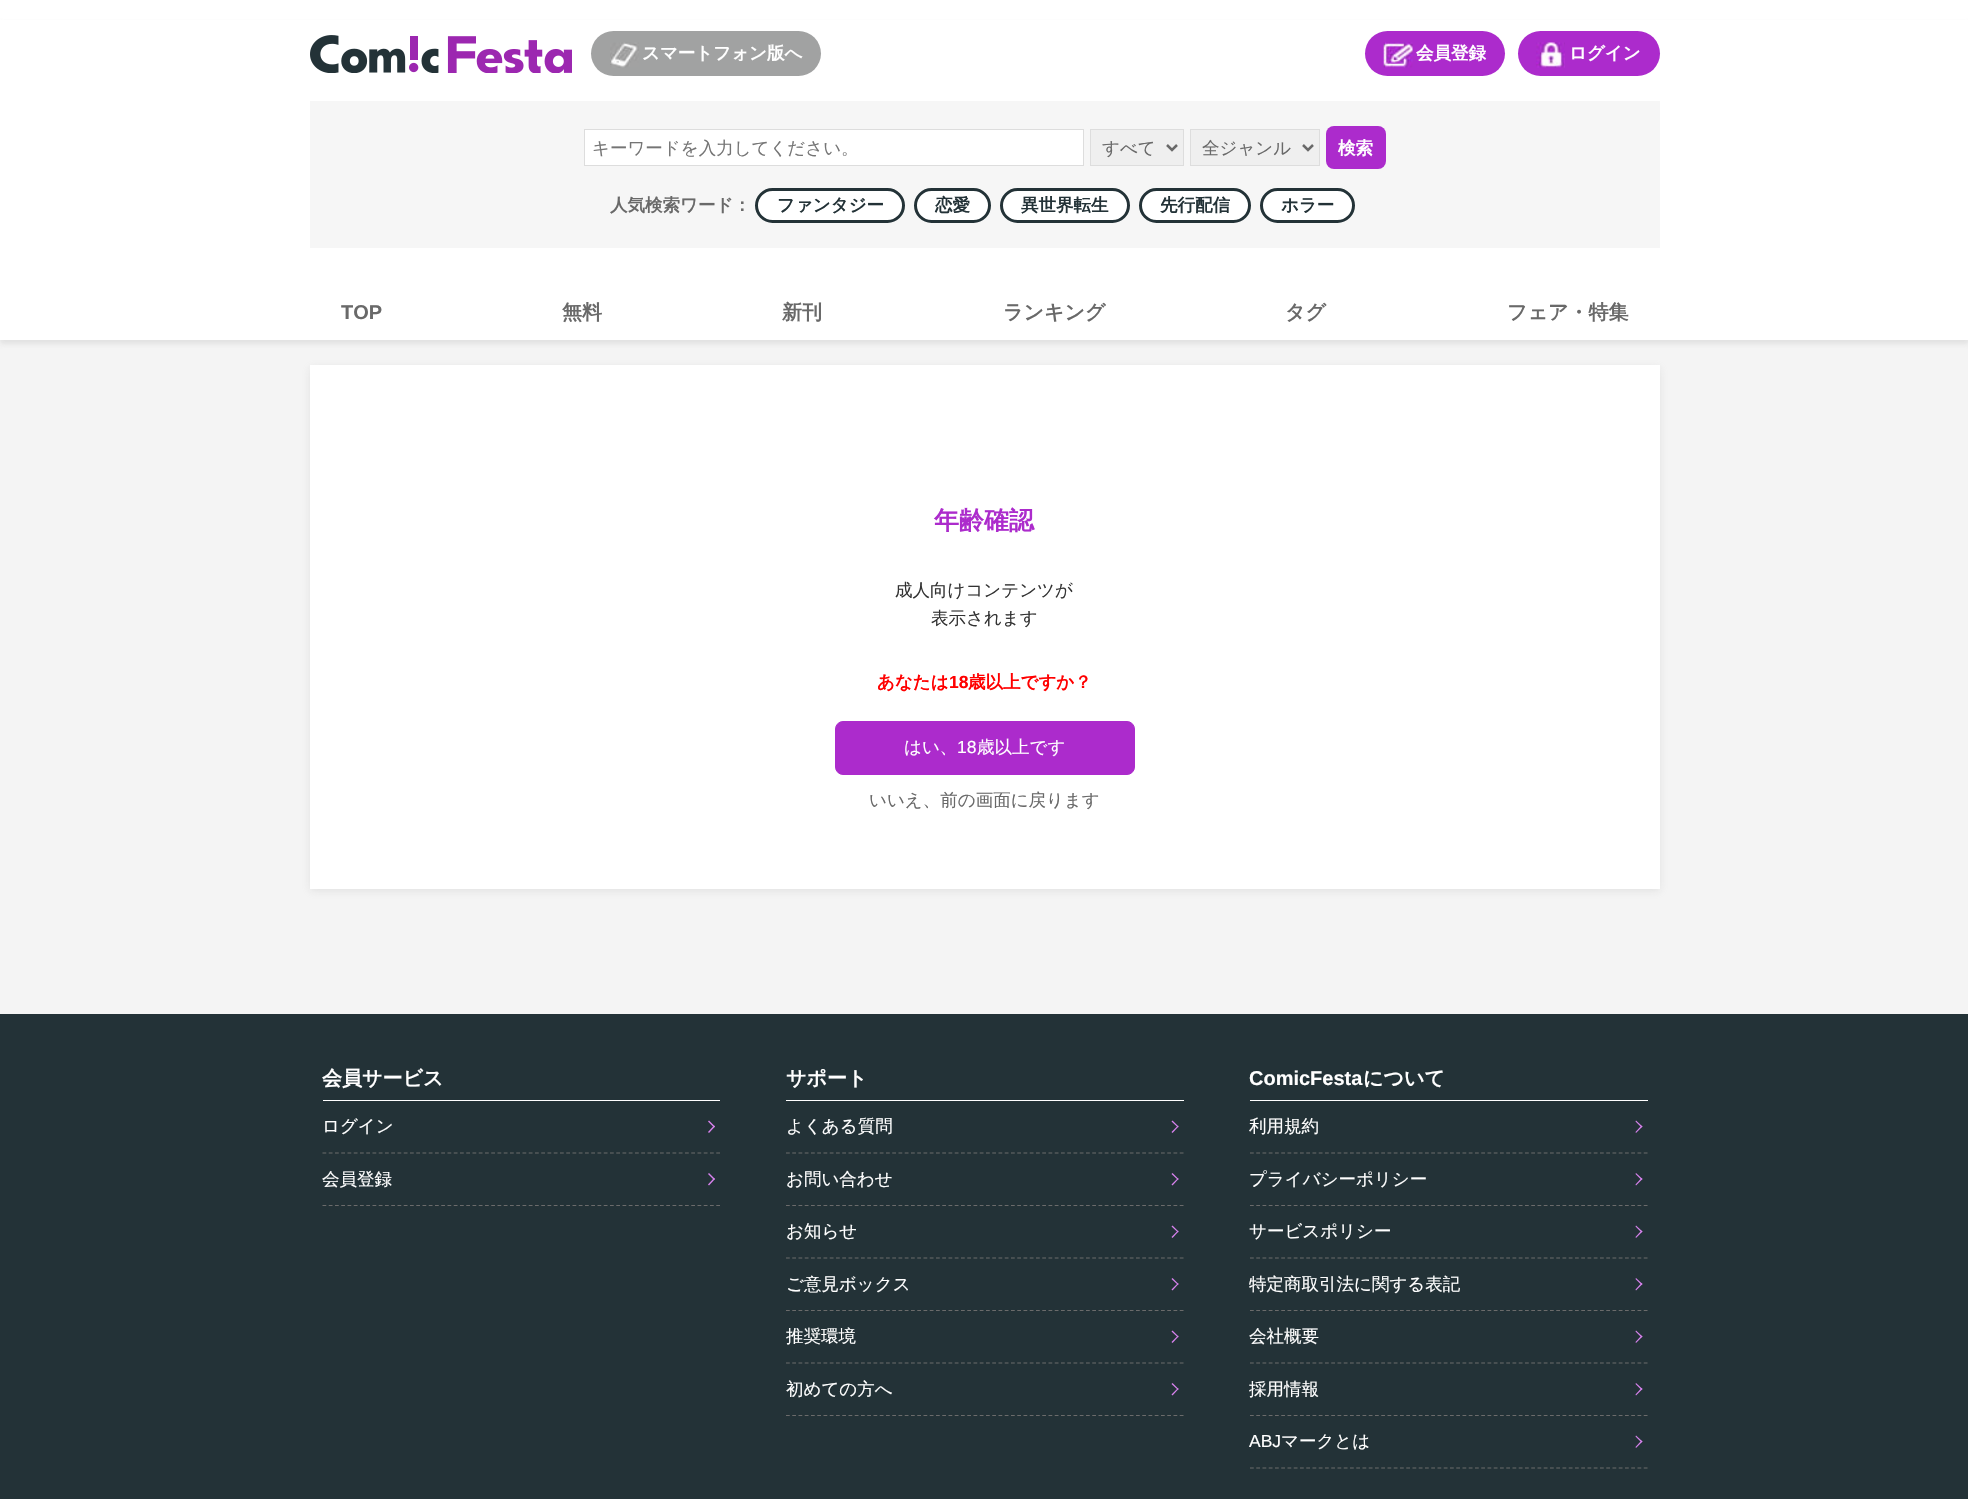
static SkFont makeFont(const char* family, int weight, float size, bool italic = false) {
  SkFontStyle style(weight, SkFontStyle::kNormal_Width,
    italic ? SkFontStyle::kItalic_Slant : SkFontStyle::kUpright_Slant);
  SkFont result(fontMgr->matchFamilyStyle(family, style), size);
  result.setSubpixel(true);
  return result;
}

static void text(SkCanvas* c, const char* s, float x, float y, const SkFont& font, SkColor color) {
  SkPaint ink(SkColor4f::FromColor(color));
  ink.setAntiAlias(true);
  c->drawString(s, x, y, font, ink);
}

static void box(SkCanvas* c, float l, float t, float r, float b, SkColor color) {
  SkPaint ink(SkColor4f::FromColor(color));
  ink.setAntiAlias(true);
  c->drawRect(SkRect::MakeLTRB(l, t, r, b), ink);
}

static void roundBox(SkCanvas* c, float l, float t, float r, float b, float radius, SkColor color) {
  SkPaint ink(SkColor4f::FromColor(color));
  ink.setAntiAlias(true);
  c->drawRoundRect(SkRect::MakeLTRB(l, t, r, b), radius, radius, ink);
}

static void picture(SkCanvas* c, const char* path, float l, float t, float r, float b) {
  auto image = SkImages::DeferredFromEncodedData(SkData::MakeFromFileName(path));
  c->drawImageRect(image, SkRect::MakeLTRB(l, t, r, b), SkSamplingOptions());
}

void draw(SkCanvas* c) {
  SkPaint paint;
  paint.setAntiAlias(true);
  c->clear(0xffffffff);
  box(c, 0, 340, 1968, 1014, 0xfff4f4f4);
  paint.setColor(0x33949494);
  paint.setMaskFilter(SkMaskFilter::MakeBlur(kNormal_SkBlurStyle, 2.5f));
  c->drawRect(SkRect::MakeLTRB(0, 23, 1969, 344), paint);
  paint.setMaskFilter(nullptr);
  box(c, 0, 20, 1968, 340, 0xffffffff);
  picture(c, "img_01.png", 310, 35, 572, 73);
  roundBox(c, 591, 31, 821, 76, 22.5f, 0xffa1a2a2);
  picture(c, "img_02.png", 610, 42, 639, 68);
  SkFont face1 = makeFont("WenQuanYi Zen Hei", 700, 17.5f);
  text(c, "スマートフォン版へ", 642, 59, face1, 0xffffffff);
  roundBox(c, 1365, 31, 1505, 76, 22.5f, 0xffac2bcc);
  picture(c, "img_03.png", 1383, 42, 1413, 68);
  text(c, "会員登録", 1416, 59, face1, 0xffffffff);
  roundBox(c, 1518, 31, 1660, 76, 22.5f, 0xffac2bcc);
  picture(c, "img_04.png", 1536, 42, 1565, 68);
  text(c, "ログイン", 1569, 59, face1, 0xffffffff);
  box(c, 310, 101, 1660, 248, 0xfff6f6f6);
  paint.setColor(0xffffffff);
  c->drawRect(SkRect::MakeLTRB(584.5f, 129.5f, 1083.5f, 165.5f), paint);
  paint.setStyle(SkPaint::kStroke_Style);
  paint.setStrokeWidth(1);
  paint.setColor(0xffdddddd);
  c->drawRect(SkRect::MakeLTRB(584.5f, 129.5f, 1083.5f, 165.5f), paint);
  SkFont face2 = makeFont("WenQuanYi Zen Hei", 500, 17.5f);
  text(c, "キーワードを入力してください。", 592, 154, face2, 0xff757575);
  paint.setStyle(SkPaint::kFill_Style);
  paint.setColor(0xffefefef);
  c->drawRect(SkRect::MakeLTRB(1090.5f, 129.5f, 1183.5f, 165.5f), paint);
  paint.setStyle(SkPaint::kStroke_Style);
  paint.setColor(0xffdddddd);
  c->drawRect(SkRect::MakeLTRB(1090.5f, 129.5f, 1183.5f, 165.5f), paint);
  paint.setStrokeWidth(2.5f);
  paint.setColor(0xff696969);
  c->drawPath(SkPathBuilder().moveTo(1167, 145).lineTo(1172, 150).lineTo(1177, 145).detach(), paint);
  text(c, "すべて", 1102, 154, face2, 0xff696969);
  paint.setStyle(SkPaint::kFill_Style);
  paint.setColor(0xffefefef);
  c->drawRect(SkRect::MakeLTRB(1190.5f, 129.5f, 1319.5f, 165.5f), paint);
  paint.setStyle(SkPaint::kStroke_Style);
  paint.setStrokeWidth(1);
  paint.setColor(0xffdddddd);
  c->drawRect(SkRect::MakeLTRB(1190.5f, 129.5f, 1319.5f, 165.5f), paint);
  paint.setStrokeWidth(2.5f);
  paint.setColor(0xff696969);
  c->drawPath(SkPathBuilder().moveTo(1303, 145).lineTo(1308, 150).lineTo(1313, 145).detach(), paint);
  text(c, "全ジャンル", 1202, 154, face2, 0xff696969);
  roundBox(c, 1326, 126, 1386, 169, 8, 0xffac2bcc);
  text(c, "検索", 1338, 154, face1, 0xffffffff);
  text(c, "人気検索ワード：", 610, 211, face1, 0xff696969);
  paint.setStyle(SkPaint::kFill_Style);
  paint.setColor(0xffffffff);
  c->drawRoundRect(SkRect::MakeLTRB(756.5f, 189.5f, 903.5f, 221.5f), 16, 16, paint);
  paint.setStyle(SkPaint::kStroke_Style);
  paint.setStrokeWidth(3);
  paint.setColor(0xff233237);
  c->drawRoundRect(SkRect::MakeLTRB(756.5f, 189.5f, 903.5f, 221.5f), 16, 16, paint);
  text(c, "ファンタジー", 777, 211, face1, 0xff233237);
  paint.setStyle(SkPaint::kFill_Style);
  paint.setColor(0xffffffff);
  c->drawRoundRect(SkRect::MakeLTRB(915.5f, 189.5f, 989.5f, 221.5f), 16, 16, paint);
  paint.setStyle(SkPaint::kStroke_Style);
  paint.setColor(0xff233237);
  c->drawRoundRect(SkRect::MakeLTRB(915.5f, 189.5f, 989.5f, 221.5f), 16, 16, paint);
  text(c, "恋愛", 935, 211, face1, 0xff233237);
  paint.setStyle(SkPaint::kFill_Style);
  paint.setColor(0xffffffff);
  c->drawRoundRect(SkRect::MakeLTRB(1001.5f, 189.5f, 1128.5f, 221.5f), 16, 16, paint);
  paint.setStyle(SkPaint::kStroke_Style);
  paint.setColor(0xff233237);
  c->drawRoundRect(SkRect::MakeLTRB(1001.5f, 189.5f, 1128.5f, 221.5f), 16, 16, paint);
  text(c, "異世界転生", 1021, 211, face1, 0xff233237);
  paint.setStyle(SkPaint::kFill_Style);
  paint.setColor(0xffffffff);
  c->drawRoundRect(SkRect::MakeLTRB(1140.5f, 189.5f, 1249.5f, 221.5f), 16, 16, paint);
  paint.setStyle(SkPaint::kStroke_Style);
  paint.setColor(0xff233237);
  c->drawRoundRect(SkRect::MakeLTRB(1140.5f, 189.5f, 1249.5f, 221.5f), 16, 16, paint);
  text(c, "先行配信", 1160, 211, face1, 0xff233237);
  paint.setStyle(SkPaint::kFill_Style);
  paint.setColor(0xffffffff);
  c->drawRoundRect(SkRect::MakeLTRB(1261.5f, 189.5f, 1353.5f, 221.5f), 16, 16, paint);
  paint.setStyle(SkPaint::kStroke_Style);
  paint.setColor(0xff233237);
  c->drawRoundRect(SkRect::MakeLTRB(1261.5f, 189.5f, 1353.5f, 221.5f), 16, 16, paint);
  text(c, "ホラー", 1281, 211, face1, 0xff233237);
  SkFont face3 = makeFont("Liberation Sans", 700, 20);
  text(c, "TOP", 341, 319, face3, 0xff696969);
  SkFont face4 = makeFont("WenQuanYi Zen Hei", 700, 20);
  text(c, "無料", 562, 319, face4, 0xff696969);
  text(c, "新刊", 782, 319, face4, 0xff696969);
  text(c, "ランキング", 1003, 319, face4, 0xff696969);
  text(c, "タグ", 1285, 319, face4, 0xff696969);
  text(c, "フェア・特集", 1507, 319, face4, 0xff696969);
  paint.setStyle(SkPaint::kFill_Style);
  paint.setColor(0x33949494);
  paint.setMaskFilter(SkMaskFilter::MakeBlur(kNormal_SkBlurStyle, 4));
  c->drawRect(SkRect::MakeLTRB(310, 368, 1660, 891), paint);
  paint.setMaskFilter(nullptr);
  box(c, 310, 365, 1660, 889, 0xffffffff);
  SkFont face5 = makeFont("WenQuanYi Zen Hei", 700, 25);
  text(c, "年齢確認", 934, 529, face5, 0xffac2bcc);
  text(c, "成人向けコンテンツが", 895, 596, face2, 0xff333333);
  text(c, "表示されます", 931, 624, face2, 0xff333333);
  text(c, "あなたは", 877, 688, face1, 0xffff0000);
  SkFont face6 = makeFont("Liberation Sans", 700, 17.5f);
  text(c, "18", 949, 688, face6, 0xffff0000);
  text(c, "歳以上ですか？", 968, 688, face1, 0xffff0000);
  paint.setColor(0xffac2bcc);
  c->drawRoundRect(SkRect::MakeLTRB(835.5f, 721.5f, 1134.5f, 774.5f), 7.5f, 7.5f, paint);
  paint.setStyle(SkPaint::kStroke_Style);
  paint.setStrokeWidth(1);
  c->drawRoundRect(SkRect::MakeLTRB(835.5f, 721.5f, 1134.5f, 774.5f), 7.5f, 7.5f, paint);
  text(c, "はい、", 904, 753, face2, 0xffffffff);
  SkFont face7 = makeFont("Liberation Sans", 400, 17.5f);
  text(c, "18", 957, 753, face7, 0xffffffff);
  text(c, "歳以上です", 977, 753, face2, 0xffffffff);
  text(c, "いいえ、前の画面に戻ります", 869, 806, face2, 0xff696969);
  box(c, 0, 1014, 1968, 1499, 0xff233237);
  box(c, 323, 1100, 720, 1101, 0xffffffff);
  text(c, "会員サービス", 322, 1085, face4, 0xffffffff);
  paint.setStrokeWidth(1.2f);
  paint.setColor(0xff6b6b6b);
  paint.setPathEffect(SkDashPathEffect::Make({{3.75f, 2.5f}}, 0));
  c->drawPath(SkPathBuilder().moveTo(322.5f, 1153).lineTo(720, 1153).detach(), paint);
  paint.setPathEffect(nullptr);
  text(c, "ログイン", 322, 1132, face2, 0xffffffff);
  paint.setStyle(SkPaint::kFill_Style);
  paint.setColor(0xffd982ef);
  c->drawPath(SkPathBuilder().moveTo(709, 1120.5f).lineTo(715, 1126.5f).lineTo(714, 1127.5f).lineTo(708, 1121.5f).close().detach(), paint);
  c->drawPath(SkPathBuilder().moveTo(714, 1125.5f).lineTo(715, 1126.5f).lineTo(709, 1133).lineTo(708, 1132).close().detach(), paint);
  paint.setStyle(SkPaint::kStroke_Style);
  paint.setColor(0xff6b6b6b);
  paint.setPathEffect(SkDashPathEffect::Make({{3.75f, 2.5f}}, 0));
  c->drawPath(SkPathBuilder().moveTo(322.5f, 1205.5f).lineTo(720, 1205.5f).detach(), paint);
  paint.setPathEffect(nullptr);
  text(c, "会員登録", 322, 1185, face2, 0xffffffff);
  paint.setStyle(SkPaint::kFill_Style);
  paint.setColor(0xffd982ef);
  c->drawPath(SkPathBuilder().moveTo(709, 1173).lineTo(715, 1179).lineTo(714, 1180).lineTo(708, 1174).close().detach(), paint);
  c->drawPath(SkPathBuilder().moveTo(714, 1178).lineTo(715, 1179).lineTo(709, 1185.5f).lineTo(708, 1184.5f).close().detach(), paint);
  box(c, 786, 1100, 1184, 1101, 0xffffffff);
  text(c, "サポート", 786, 1085, face4, 0xffffffff);
  paint.setStyle(SkPaint::kStroke_Style);
  paint.setColor(0xff6b6b6b);
  paint.setPathEffect(SkDashPathEffect::Make({{3.75f, 2.5f}}, 0));
  c->drawPath(SkPathBuilder().moveTo(786, 1153).lineTo(1184, 1153).detach(), paint);
  paint.setPathEffect(nullptr);
  text(c, "よくある質問", 786, 1132, face2, 0xffffffff);
  paint.setStyle(SkPaint::kFill_Style);
  paint.setColor(0xffd982ef);
  c->drawPath(SkPathBuilder().moveTo(1172.5f, 1120.5f).lineTo(1178.5f, 1126.5f).lineTo(1178, 1127.5f).lineTo(1171.5f, 1121.5f).close().detach(), paint);
  c->drawPath(SkPathBuilder().moveTo(1178, 1125.5f).lineTo(1178.5f, 1126.5f).lineTo(1172.5f, 1133).lineTo(1171.5f, 1132).close().detach(), paint);
  paint.setStyle(SkPaint::kStroke_Style);
  paint.setColor(0xff6b6b6b);
  paint.setPathEffect(SkDashPathEffect::Make({{3.75f, 2.5f}}, 0));
  c->drawPath(SkPathBuilder().moveTo(786, 1205.5f).lineTo(1184, 1205.5f).detach(), paint);
  paint.setPathEffect(nullptr);
  text(c, "お問い合わせ", 786, 1185, face2, 0xffffffff);
  paint.setStyle(SkPaint::kFill_Style);
  paint.setColor(0xffd982ef);
  c->drawPath(SkPathBuilder().moveTo(1172.5f, 1173).lineTo(1178.5f, 1179).lineTo(1178, 1180).lineTo(1171.5f, 1174).close().detach(), paint);
  c->drawPath(SkPathBuilder().moveTo(1178, 1178).lineTo(1178.5f, 1179).lineTo(1172.5f, 1185.5f).lineTo(1171.5f, 1184.5f).close().detach(), paint);
  paint.setStyle(SkPaint::kStroke_Style);
  paint.setColor(0xff6b6b6b);
  paint.setPathEffect(SkDashPathEffect::Make({{3.75f, 2.5f}}, 0));
  c->drawPath(SkPathBuilder().moveTo(786, 1258).lineTo(1184, 1258).detach(), paint);
  paint.setPathEffect(nullptr);
  text(c, "お知らせ", 786, 1237, face2, 0xffffffff);
  paint.setStyle(SkPaint::kFill_Style);
  paint.setColor(0xffd982ef);
  c->drawPath(SkPathBuilder().moveTo(1172.5f, 1225.5f).lineTo(1178.5f, 1231.5f).lineTo(1178, 1232.5f).lineTo(1171.5f, 1226.5f).close().detach(), paint);
  c->drawPath(SkPathBuilder().moveTo(1178, 1230.5f).lineTo(1178.5f, 1231.5f).lineTo(1172.5f, 1238).lineTo(1171.5f, 1237).close().detach(), paint);
  paint.setStyle(SkPaint::kStroke_Style);
  paint.setColor(0xff6b6b6b);
  paint.setPathEffect(SkDashPathEffect::Make({{3.75f, 2.5f}}, 0));
  c->drawPath(SkPathBuilder().moveTo(786, 1310.5f).lineTo(1184, 1310.5f).detach(), paint);
  paint.setPathEffect(nullptr);
  text(c, "ご意見ボックス", 786, 1290, face2, 0xffffffff);
  paint.setStyle(SkPaint::kFill_Style);
  paint.setColor(0xffd982ef);
  c->drawPath(SkPathBuilder().moveTo(1172.5f, 1278).lineTo(1178.5f, 1284).lineTo(1178, 1285).lineTo(1171.5f, 1279).close().detach(), paint);
  c->drawPath(SkPathBuilder().moveTo(1178, 1283).lineTo(1178.5f, 1284).lineTo(1172.5f, 1290.5f).lineTo(1171.5f, 1289.5f).close().detach(), paint);
  paint.setStyle(SkPaint::kStroke_Style);
  paint.setColor(0xff6b6b6b);
  paint.setPathEffect(SkDashPathEffect::Make({{3.75f, 2.5f}}, 0));
  c->drawPath(SkPathBuilder().moveTo(786, 1363).lineTo(1184, 1363).detach(), paint);
  paint.setPathEffect(nullptr);
  text(c, "推奨環境", 786, 1342, face2, 0xffffffff);
  paint.setStyle(SkPaint::kFill_Style);
  paint.setColor(0xffd982ef);
  c->drawPath(SkPathBuilder().moveTo(1172.5f, 1330.5f).lineTo(1178.5f, 1336.5f).lineTo(1178, 1337.5f).lineTo(1171.5f, 1331.5f).close().detach(), paint);
  c->drawPath(SkPathBuilder().moveTo(1178, 1335.5f).lineTo(1178.5f, 1336.5f).lineTo(1172.5f, 1343).lineTo(1171.5f, 1342).close().detach(), paint);
  paint.setStyle(SkPaint::kStroke_Style);
  paint.setColor(0xff6b6b6b);
  paint.setPathEffect(SkDashPathEffect::Make({{3.75f, 2.5f}}, 0));
  c->drawPath(SkPathBuilder().moveTo(786, 1415.5f).lineTo(1184, 1415.5f).detach(), paint);
  paint.setPathEffect(nullptr);
  text(c, "初めての方へ", 786, 1395, face2, 0xffffffff);
  paint.setStyle(SkPaint::kFill_Style);
  paint.setColor(0xffd982ef);
  c->drawPath(SkPathBuilder().moveTo(1172.5f, 1383).lineTo(1178.5f, 1389).lineTo(1178, 1390).lineTo(1171.5f, 1384).close().detach(), paint);
  c->drawPath(SkPathBuilder().moveTo(1178, 1388).lineTo(1178.5f, 1389).lineTo(1172.5f, 1395.5f).lineTo(1171.5f, 1394.5f).close().detach(), paint);
  box(c, 1250, 1100, 1648, 1101, 0xffffffff);
  text(c, "ComicFesta", 1249, 1085, face3, 0xffffffff);
  text(c, "について", 1363, 1085, face4, 0xffffffff);
  paint.setStyle(SkPaint::kStroke_Style);
  paint.setColor(0xff6b6b6b);
  paint.setPathEffect(SkDashPathEffect::Make({{3.75f, 2.5f}}, 0));
  c->drawPath(SkPathBuilder().moveTo(1250, 1153).lineTo(1647.5f, 1153).detach(), paint);
  paint.setPathEffect(nullptr);
  text(c, "利用規約", 1249, 1132, face2, 0xffffffff);
  paint.setStyle(SkPaint::kFill_Style);
  paint.setColor(0xffd982ef);
  c->drawPath(SkPathBuilder().moveTo(1636, 1120.5f).lineTo(1642.5f, 1126.5f).lineTo(1641.5f, 1127.5f).lineTo(1635.5f, 1121.5f).close().detach(), paint);
  c->drawPath(SkPathBuilder().moveTo(1641.5f, 1125.5f).lineTo(1642.5f, 1126.5f).lineTo(1636, 1133).lineTo(1635.5f, 1132).close().detach(), paint);
  paint.setStyle(SkPaint::kStroke_Style);
  paint.setColor(0xff6b6b6b);
  paint.setPathEffect(SkDashPathEffect::Make({{3.75f, 2.5f}}, 0));
  c->drawPath(SkPathBuilder().moveTo(1250, 1205.5f).lineTo(1647.5f, 1205.5f).detach(), paint);
  paint.setPathEffect(nullptr);
  text(c, "プライバシーポリシー", 1249, 1185, face2, 0xffffffff);
  paint.setStyle(SkPaint::kFill_Style);
  paint.setColor(0xffd982ef);
  c->drawPath(SkPathBuilder().moveTo(1636, 1173).lineTo(1642.5f, 1179).lineTo(1641.5f, 1180).lineTo(1635.5f, 1174).close().detach(), paint);
  c->drawPath(SkPathBuilder().moveTo(1641.5f, 1178).lineTo(1642.5f, 1179).lineTo(1636, 1185.5f).lineTo(1635.5f, 1184.5f).close().detach(), paint);
  paint.setStyle(SkPaint::kStroke_Style);
  paint.setColor(0xff6b6b6b);
  paint.setPathEffect(SkDashPathEffect::Make({{3.75f, 2.5f}}, 0));
  c->drawPath(SkPathBuilder().moveTo(1250, 1258).lineTo(1647.5f, 1258).detach(), paint);
  paint.setPathEffect(nullptr);
  text(c, "サービスポリシー", 1249, 1237, face2, 0xffffffff);
  paint.setStyle(SkPaint::kFill_Style);
  paint.setColor(0xffd982ef);
  c->drawPath(SkPathBuilder().moveTo(1636, 1225.5f).lineTo(1642.5f, 1231.5f).lineTo(1641.5f, 1232.5f).lineTo(1635.5f, 1226.5f).close().detach(), paint);
  c->drawPath(SkPathBuilder().moveTo(1641.5f, 1230.5f).lineTo(1642.5f, 1231.5f).lineTo(1636, 1238).lineTo(1635.5f, 1237).close().detach(), paint);
  paint.setStyle(SkPaint::kStroke_Style);
  paint.setColor(0xff6b6b6b);
  paint.setPathEffect(SkDashPathEffect::Make({{3.75f, 2.5f}}, 0));
  c->drawPath(SkPathBuilder().moveTo(1250, 1310.5f).lineTo(1647.5f, 1310.5f).detach(), paint);
  paint.setPathEffect(nullptr);
  text(c, "特定商取引法に関する表記", 1249, 1290, face2, 0xffffffff);
  paint.setStyle(SkPaint::kFill_Style);
  paint.setColor(0xffd982ef);
  c->drawPath(SkPathBuilder().moveTo(1636, 1278).lineTo(1642.5f, 1284).lineTo(1641.5f, 1285).lineTo(1635.5f, 1279).close().detach(), paint);
  c->drawPath(SkPathBuilder().moveTo(1641.5f, 1283).lineTo(1642.5f, 1284).lineTo(1636, 1290.5f).lineTo(1635.5f, 1289.5f).close().detach(), paint);
  paint.setStyle(SkPaint::kStroke_Style);
  paint.setColor(0xff6b6b6b);
  paint.setPathEffect(SkDashPathEffect::Make({{3.75f, 2.5f}}, 0));
  c->drawPath(SkPathBuilder().moveTo(1250, 1363).lineTo(1647.5f, 1363).detach(), paint);
  paint.setPathEffect(nullptr);
  text(c, "会社概要", 1249, 1342, face2, 0xffffffff);
  paint.setStyle(SkPaint::kFill_Style);
  paint.setColor(0xffd982ef);
  c->drawPath(SkPathBuilder().moveTo(1636, 1330.5f).lineTo(1642.5f, 1336.5f).lineTo(1641.5f, 1337.5f).lineTo(1635.5f, 1331.5f).close().detach(), paint);
  c->drawPath(SkPathBuilder().moveTo(1641.5f, 1335.5f).lineTo(1642.5f, 1336.5f).lineTo(1636, 1343).lineTo(1635.5f, 1342).close().detach(), paint);
  paint.setStyle(SkPaint::kStroke_Style);
  paint.setColor(0xff6b6b6b);
  paint.setPathEffect(SkDashPathEffect::Make({{3.75f, 2.5f}}, 0));
  c->drawPath(SkPathBuilder().moveTo(1250, 1415.5f).lineTo(1647.5f, 1415.5f).detach(), paint);
  paint.setPathEffect(nullptr);
  text(c, "採用情報", 1249, 1395, face2, 0xffffffff);
  paint.setStyle(SkPaint::kFill_Style);
  paint.setColor(0xffd982ef);
  c->drawPath(SkPathBuilder().moveTo(1636, 1383).lineTo(1642.5f, 1389).lineTo(1641.5f, 1390).lineTo(1635.5f, 1384).close().detach(), paint);
  c->drawPath(SkPathBuilder().moveTo(1641.5f, 1388).lineTo(1642.5f, 1389).lineTo(1636, 1395.5f).lineTo(1635.5f, 1394.5f).close().detach(), paint);
  paint.setStyle(SkPaint::kStroke_Style);
  paint.setColor(0xff6b6b6b);
  paint.setPathEffect(SkDashPathEffect::Make({{3.75f, 2.5f}}, 0));
  c->drawPath(SkPathBuilder().moveTo(1250, 1468).lineTo(1647.5f, 1468).detach(), paint);
  paint.setPathEffect(nullptr);
  text(c, "ABJ", 1249, 1447, face7, 0xffffffff);
  text(c, "マークとは", 1281, 1447, face2, 0xffffffff);
  paint.setStyle(SkPaint::kFill_Style);
  paint.setColor(0xffd982ef);
  c->drawPath(SkPathBuilder().moveTo(1636, 1435.5f).lineTo(1642.5f, 1441.5f).lineTo(1641.5f, 1442.5f).lineTo(1635.5f, 1436.5f).close().detach(), paint);
  c->drawPath(SkPathBuilder().moveTo(1641.5f, 1440.5f).lineTo(1642.5f, 1441.5f).lineTo(1636, 1448).lineTo(1635.5f, 1447).close().detach(), paint);
}
